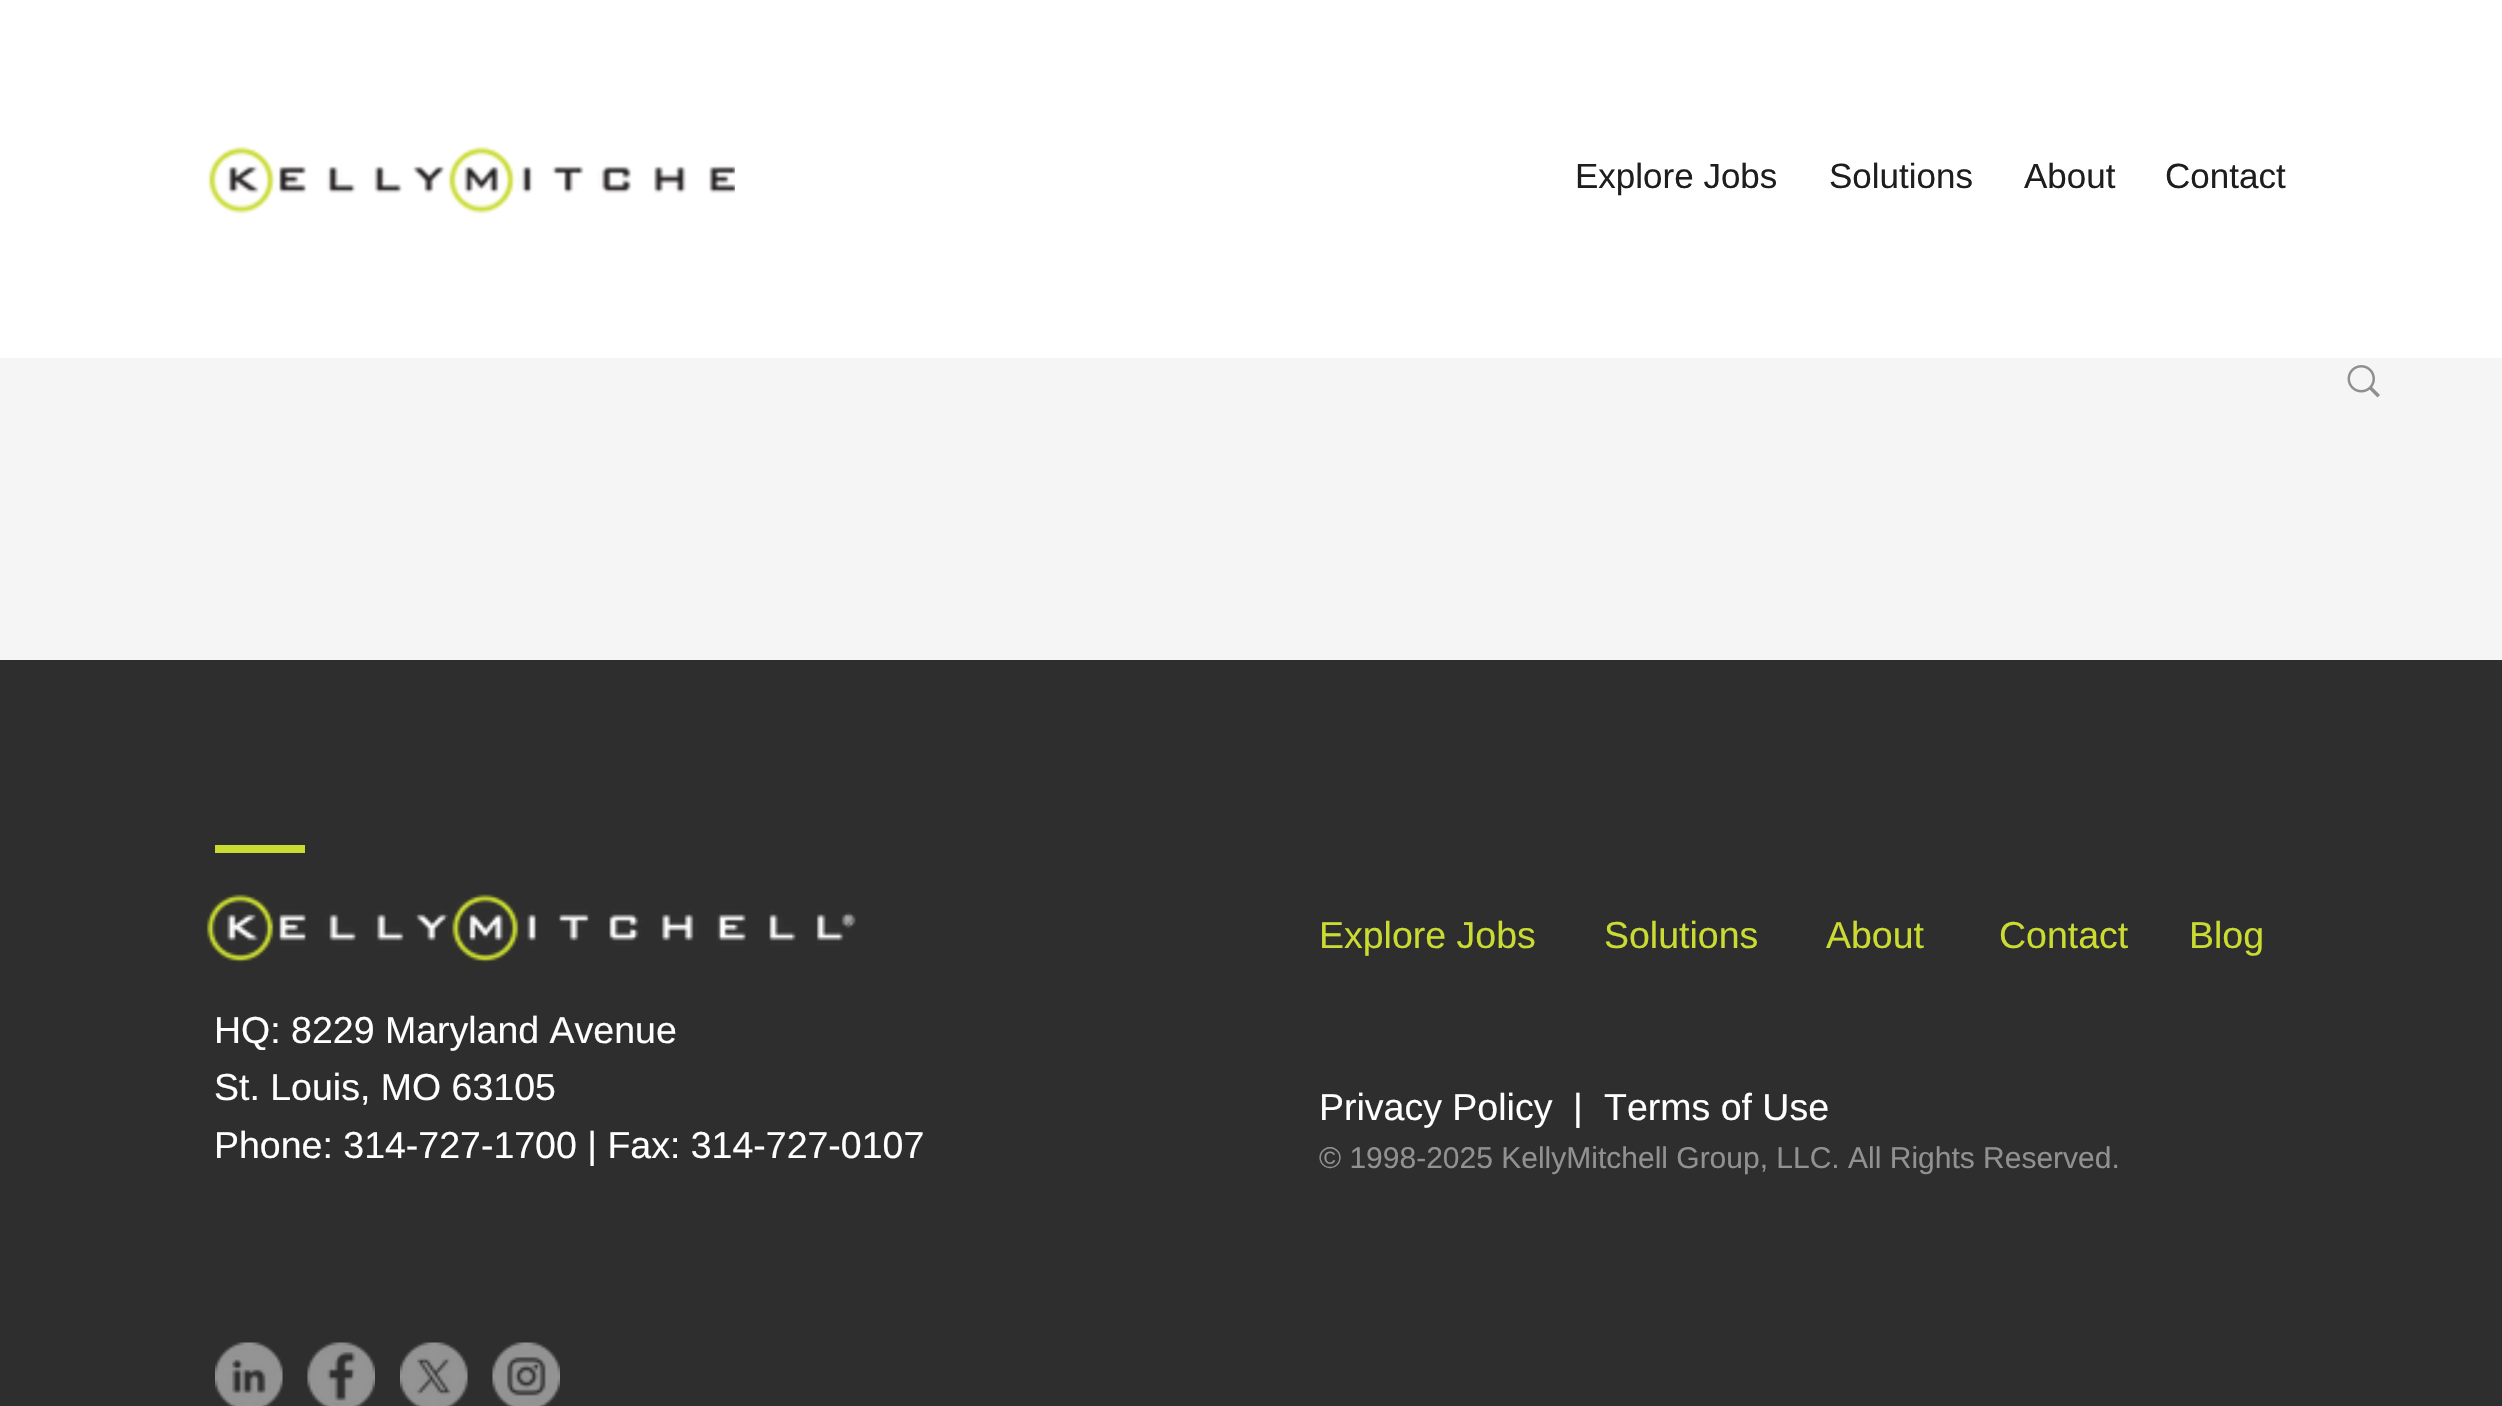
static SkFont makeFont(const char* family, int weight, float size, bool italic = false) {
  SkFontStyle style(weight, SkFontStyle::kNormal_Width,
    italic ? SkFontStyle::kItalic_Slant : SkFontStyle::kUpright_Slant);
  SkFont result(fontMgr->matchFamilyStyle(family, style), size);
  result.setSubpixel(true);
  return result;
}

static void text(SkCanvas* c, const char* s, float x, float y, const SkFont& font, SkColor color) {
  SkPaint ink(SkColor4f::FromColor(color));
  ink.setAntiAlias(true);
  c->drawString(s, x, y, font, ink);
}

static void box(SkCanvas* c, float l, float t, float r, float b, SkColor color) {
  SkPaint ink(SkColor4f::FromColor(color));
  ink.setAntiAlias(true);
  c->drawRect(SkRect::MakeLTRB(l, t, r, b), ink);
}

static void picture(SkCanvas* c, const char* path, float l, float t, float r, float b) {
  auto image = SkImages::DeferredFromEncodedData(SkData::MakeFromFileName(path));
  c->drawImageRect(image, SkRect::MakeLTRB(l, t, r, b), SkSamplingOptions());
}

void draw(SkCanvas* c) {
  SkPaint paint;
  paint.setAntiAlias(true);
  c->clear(0xfff5f5f5);
  box(c, 0, 0, 2502, 358, 0xffffffff);
  picture(c, "img_01.png", 207, 146, 735, 214);
  SkFont face1 = makeFont("Liberation Sans", 400, 35);
  text(c, "Explore Jobs", 1575, 188, face1, 0xff1e1e1e);
  text(c, "Solutions", 1829, 188, face1, 0xff1e1e1e);
  text(c, "About", 2024, 188, face1, 0xff1e1e1e);
  text(c, "Contact", 2165, 188, face1, 0xff1e1e1e);
  picture(c, "img_02.png", 2347, 365, 2380, 398);
  box(c, 0, 660, 2502, 1406, 0xff2f2e2e);
  SkFont face2 = makeFont("Liberation Sans", 400, 37.5f);
  text(c, "Explore Jobs", 1319, 948, face2, 0xffcadb32);
  text(c, "Solutions", 1604, 948, face2, 0xffcadb32);
  text(c, "About", 1826, 948, face2, 0xffcadb32);
  text(c, "Contact", 1999, 948, face2, 0xffcadb32);
  text(c, "Blog", 2189, 948, face2, 0xffcadb32);
  box(c, 215, 845, 305, 853, 0xffcadb32);
  picture(c, "img_03.png", 206, 894, 856, 963);
  text(c, "HQ: 8229 Maryland Avenue", 214, 1043, face2, 0xffffffff);
  text(c, "St. Louis, MO 63105", 214, 1100, face2, 0xffffffff);
  text(c, "Phone: 314-727-1700 | Fax: 314-727-0107", 214, 1158, face2, 0xffffffff);
  text(c, "Privacy Policy", 1319, 1120, face2, 0xffffffff);
  text(c, "|", 1573, 1120, face2, 0xffffffff);
  text(c, "Terms of Use", 1604, 1120, face2, 0xffffffff);
  SkFont face3 = makeFont("Liberation Sans", 400, 30);
  text(c, "© 1998-2025 KellyMitchell Group, LLC. All Rights Reserved.", 1319, 1168, face3, 0xff919191);
  picture(c, "img_04.png", 215, 1342, 283, 1406);
  picture(c, "img_05.png", 307, 1342, 375, 1406);
  picture(c, "img_06.png", 400, 1342, 468, 1406);
  picture(c, "img_07.png", 492, 1342, 560, 1406);
}
